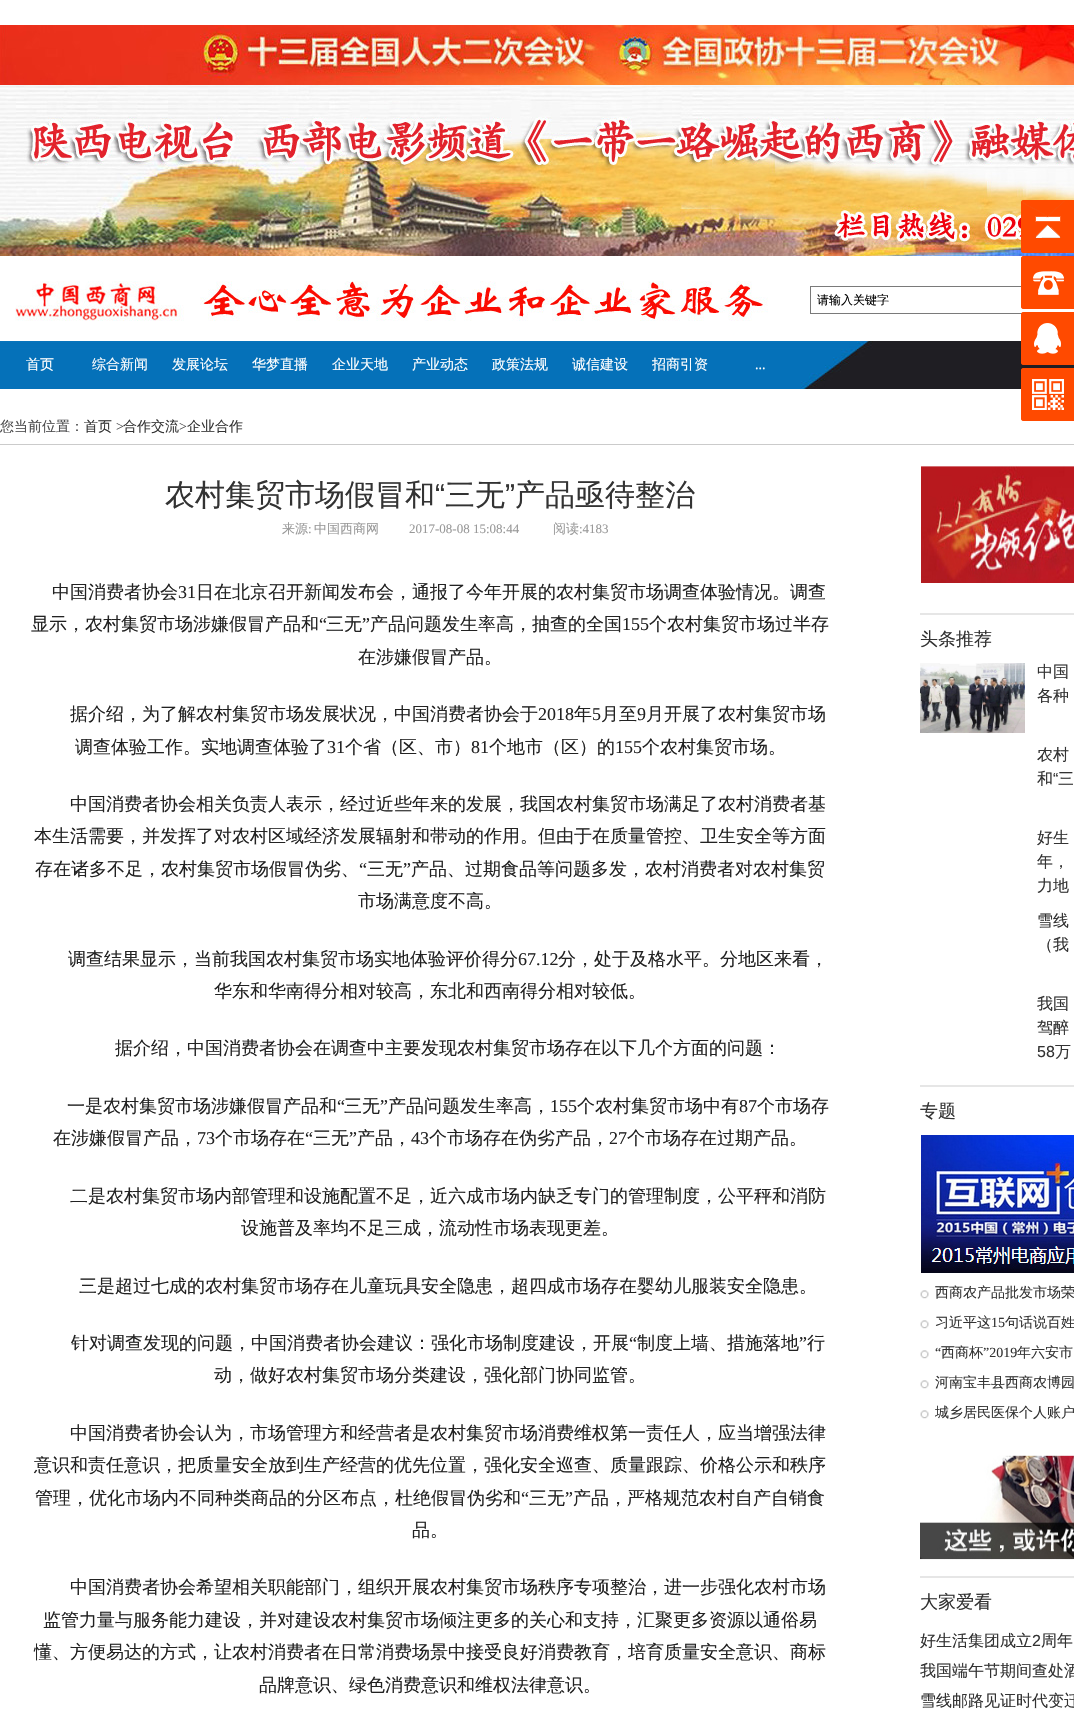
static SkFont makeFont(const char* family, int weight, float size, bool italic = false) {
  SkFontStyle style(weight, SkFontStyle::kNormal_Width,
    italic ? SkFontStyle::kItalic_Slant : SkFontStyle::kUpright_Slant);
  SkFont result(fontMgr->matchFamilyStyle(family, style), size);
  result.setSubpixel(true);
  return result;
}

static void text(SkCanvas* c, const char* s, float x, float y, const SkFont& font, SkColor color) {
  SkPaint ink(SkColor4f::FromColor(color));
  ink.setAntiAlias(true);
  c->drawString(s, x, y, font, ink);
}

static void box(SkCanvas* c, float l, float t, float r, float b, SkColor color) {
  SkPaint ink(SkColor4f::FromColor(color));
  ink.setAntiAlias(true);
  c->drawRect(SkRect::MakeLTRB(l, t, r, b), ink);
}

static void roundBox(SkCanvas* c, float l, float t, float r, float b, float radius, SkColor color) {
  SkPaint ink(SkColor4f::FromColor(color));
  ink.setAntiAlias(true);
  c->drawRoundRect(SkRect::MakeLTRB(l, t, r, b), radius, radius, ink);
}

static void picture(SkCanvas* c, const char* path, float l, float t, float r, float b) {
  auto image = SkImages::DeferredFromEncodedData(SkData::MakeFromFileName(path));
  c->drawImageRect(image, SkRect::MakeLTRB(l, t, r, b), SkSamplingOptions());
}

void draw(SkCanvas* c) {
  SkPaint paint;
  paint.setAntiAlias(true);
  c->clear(0xffffffff);
  picture(c, "img_01.png", 0, 25, 1074, 85);
  picture(c, "img_02.png", 0, 85, 1074, 256);
  picture(c, "img_03.png", 15, 281, 768, 321);
  paint.setStyle(SkPaint::kStroke_Style);
  paint.setStrokeWidth(1);
  paint.setColor(0xff7a7a7a);
  c->drawRect(SkRect::MakeLTRB(810.5f, 286.5f, 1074.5f, 313.5f), paint);
  SkFont face1 = makeFont("WenQuanYi Zen Hei", 500, 12);
  text(c, "请输入关键字", 817, 304, face1, 0xff000000);
  roundBox(c, 1021, 200, 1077, 253, 3, 0xffff4a00);
  picture(c, "img_04.png", 1021, 200, 1065, 253);
  roundBox(c, 1021, 256, 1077, 309, 3, 0xffff4a00);
  picture(c, "img_05.png", 1021, 256, 1064, 309);
  picture(c, "img_08.png", 0, 341, 1074, 389);
  roundBox(c, 1021, 312, 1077, 365, 3, 0xffff4a00);
  picture(c, "img_06.png", 1021, 312, 1061, 365);
  roundBox(c, 1021, 368, 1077, 421, 3, 0xffff4a00);
  picture(c, "img_07.png", 1021, 368, 1064, 421);
  SkFont face2 = makeFont("WenQuanYi Zen Hei", 500, 14);
  text(c, "首页", 26, 369, face2, 0xffffffff);
  text(c, "综合新闻", 92, 369, face2, 0xffffffff);
  text(c, "发展论坛", 172, 369, face2, 0xffffffff);
  text(c, "华梦直播", 252, 369, face2, 0xffffffff);
  text(c, "企业天地", 332, 369, face2, 0xffffffff);
  text(c, "产业动态", 412, 369, face2, 0xffffffff);
  text(c, "政策法规", 492, 369, face2, 0xffffffff);
  text(c, "诚信建设", 572, 369, face2, 0xffffffff);
  text(c, "招商引资", 652, 369, face2, 0xffffffff);
  SkFont face3 = makeFont("Liberation Serif", 400, 14);
  text(c, "...", 755, 369, face3, 0xffffffff);
  box(c, 0, 444, 1074, 445, 0xffcbcbcb);
  text(c, "您当前位置：", 0, 431, face2, 0xff4a4a4b);
  text(c, "首页", 84, 431, face2, 0xff333333);
  text(c, ">", 116, 431, face3, 0xff4a4a4b);
  text(c, "合作交流", 123, 431, face2, 0xff333333);
  text(c, ">", 179, 431, face3, 0xff4a4a4b);
  text(c, "企业合作", 187, 431, face2, 0xff333333);
  SkFont face4 = makeFont("WenQuanYi Zen Hei", 500, 30);
  text(c, "农村集贸市场假冒和", 165, 505, face4, 0xff333333);
  SkFont face5 = makeFont("Liberation Sans", 400, 30);
  text(c, "“", 435, 505, face5, 0xff333333);
  text(c, "三无", 445, 505, face4, 0xff333333);
  text(c, "”", 505, 505, face5, 0xff333333);
  text(c, "产品亟待整治", 515, 505, face4, 0xff333333);
  SkFont face6 = makeFont("WenQuanYi Zen Hei", 500, 13);
  text(c, "来源", 282, 533, face6, 0xff999999);
  SkFont face7 = makeFont("Liberation Serif", 400, 13);
  text(c, ":", 308, 533, face7, 0xff999999);
  text(c, "中国西商网", 314, 533, face6, 0xff999999);
  text(c, "2017-08-08 15:08:44", 409, 533, face7, 0xff999999);
  text(c, "阅读", 553, 533, face6, 0xff999999);
  text(c, ":4183", 579, 533, face7, 0xff999999);
  SkFont face8 = makeFont("WenQuanYi Zen Hei", 500, 18);
  text(c, "中国消费者协会", 52, 598, face8, 0xff222222);
  SkFont face9 = makeFont("Liberation Serif", 400, 18);
  text(c, "31", 178, 598, face9, 0xff222222);
  text(c, "日在北京召开新闻发布会，通报了今年开展的农村集贸市场调查体验情况。调查", 196, 598, face8, 0xff222222);
  text(c, "显示，农村集贸市场涉嫌假冒产品和", 31, 630, face8, 0xff222222);
  text(c, "“", 319, 630, face9, 0xff222222);
  text(c, "三无", 326, 630, face8, 0xff222222);
  text(c, "”", 362, 630, face9, 0xff222222);
  text(c, "产品问题发生率高，抽查的全国", 370, 630, face8, 0xff222222);
  text(c, "155", 622, 630, face9, 0xff222222);
  text(c, "个农村集贸市场过半存", 649, 630, face8, 0xff222222);
  text(c, "在涉嫌假冒产品。", 358, 663, face8, 0xff222222);
  text(c, "据介绍，为了解农村集贸市场发展状况，中国消费者协会于", 70, 720, face8, 0xff222222);
  text(c, "2018", 538, 720, face9, 0xff222222);
  text(c, "年", 574, 720, face8, 0xff222222);
  text(c, "5", 592, 720, face9, 0xff222222);
  text(c, "月至", 601, 720, face8, 0xff222222);
  text(c, "9", 637, 720, face9, 0xff222222);
  text(c, "月开展了农村集贸市场", 646, 720, face8, 0xff222222);
  text(c, "调查体验工作。实地调查体验了", 75, 753, face8, 0xff222222);
  text(c, "31", 327, 753, face9, 0xff222222);
  text(c, "个省（区、市）", 345, 753, face8, 0xff222222);
  text(c, "81", 471, 753, face9, 0xff222222);
  text(c, "个地市（区）的", 489, 753, face8, 0xff222222);
  text(c, "155", 615, 753, face9, 0xff222222);
  text(c, "个农村集贸市场。", 642, 753, face8, 0xff222222);
  text(c, "中国消费者协会相关负责人表示，经过近些年来的发展，我国农村集贸市场满足了农村消费者基", 70, 810, face8, 0xff222222);
  text(c, "本生活需要，并发挥了对农村区域经济发展辐射和带动的作用。但由于在质量管控、卫生安全等方面", 34, 842, face8, 0xff222222);
  text(c, "存在诸多不足，农村集贸市场假冒伪劣、", 35, 875, face8, 0xff222222);
  text(c, "“", 359, 875, face9, 0xff222222);
  text(c, "三无", 367, 875, face8, 0xff222222);
  text(c, "”", 403, 875, face9, 0xff222222);
  text(c, "产品、过期食品等问题多发，农村消费者对农村集贸", 411, 875, face8, 0xff222222);
  text(c, "市场满意度不高。", 358, 907, face8, 0xff222222);
  text(c, "调查结果显示，当前我国农村集贸市场实地体验评价得分", 68, 965, face8, 0xff222222);
  text(c, "67.12", 518, 965, face9, 0xff222222);
  text(c, "分，处于及格水平。分地区来看，", 558, 965, face8, 0xff222222);
  text(c, "华东和华南得分相对较高，东北和西南得分相对较低。", 214, 997, face8, 0xff222222);
  text(c, "据介绍，中国消费者协会在调查中主要发现农村集贸市场存在以下几个方面的问题：", 115, 1054, face8, 0xff222222);
  text(c, "一是农村集贸市场涉嫌假冒产品和", 67, 1112, face8, 0xff222222);
  text(c, "“", 337, 1112, face9, 0xff222222);
  text(c, "三无", 344, 1112, face8, 0xff222222);
  text(c, "”", 380, 1112, face9, 0xff222222);
  text(c, "产品问题发生率高，", 388, 1112, face8, 0xff222222);
  text(c, "155", 550, 1112, face9, 0xff222222);
  text(c, "个农村集贸市场中有", 577, 1112, face8, 0xff222222);
  text(c, "87", 739, 1112, face9, 0xff222222);
  text(c, "个市场存", 757, 1112, face8, 0xff222222);
  text(c, "在涉嫌假冒产品，", 53, 1144, face8, 0xff222222);
  text(c, "73", 197, 1144, face9, 0xff222222);
  text(c, "个市场存在", 215, 1144, face8, 0xff222222);
  text(c, "“", 305, 1144, face9, 0xff222222);
  text(c, "三无", 313, 1144, face8, 0xff222222);
  text(c, "”", 349, 1144, face9, 0xff222222);
  text(c, "产品，", 357, 1144, face8, 0xff222222);
  text(c, "43", 411, 1144, face9, 0xff222222);
  text(c, "个市场存在伪劣产品，", 429, 1144, face8, 0xff222222);
  text(c, "27", 609, 1144, face9, 0xff222222);
  text(c, "个市场存在过期产品。", 627, 1144, face8, 0xff222222);
  text(c, "二是农村集贸市场内部管理和设施配置不足，近六成市场内缺乏专门的管理制度，公平秤和消防", 70, 1202, face8, 0xff222222);
  text(c, "设施普及率均不足三成，流动性市场表现更差。", 241, 1234, face8, 0xff222222);
  text(c, "三是超过七成的农村集贸市场存在儿童玩具安全隐患，超四成市场存在婴幼儿服装安全隐患。", 79, 1292, face8, 0xff222222);
  text(c, "针对调查发现的问题，中国消费者协会建议：强化市场制度建设，开展", 71, 1349, face8, 0xff222222);
  text(c, "“", 629, 1349, face9, 0xff222222);
  text(c, "制度上墙、措施落地", 637, 1349, face8, 0xff222222);
  text(c, "”", 799, 1349, face9, 0xff222222);
  text(c, "行", 807, 1349, face8, 0xff222222);
  text(c, "动，做好农村集贸市场分类建设，强化部门协同监管。", 214, 1381, face8, 0xff222222);
  text(c, "中国消费者协会认为，市场管理方和经营者是农村集贸市场消费维权第一责任人，应当增强法律", 70, 1439, face8, 0xff222222);
  text(c, "意识和责任意识，把质量安全放到生产经营的优先位置，强化安全巡查、质量跟踪、价格公示和秩序", 34, 1471, face8, 0xff222222);
  text(c, "管理，优化市场内不同种类商品的分区布点，杜绝假冒伪劣和", 35, 1504, face8, 0xff222222);
  text(c, "“", 521, 1504, face9, 0xff222222);
  text(c, "三无", 529, 1504, face8, 0xff222222);
  text(c, "”", 565, 1504, face9, 0xff222222);
  text(c, "产品，严格规范农村自产自销食", 573, 1504, face8, 0xff222222);
  text(c, "品。", 412, 1536, face8, 0xff222222);
  text(c, "中国消费者协会希望相关职能部门，组织开展农村集贸市场秩序专项整治，进一步强化农村市场", 70, 1593, face8, 0xff222222);
  text(c, "监管力量与服务能力建设，并对建设农村集贸市场倾注更多的关心和支持，汇聚更多资源以通俗易", 43, 1626, face8, 0xff222222);
  text(c, "懂、方便易达的方式，让农村消费者在日常消费场景中接受良好消费教育，培育质量安全意识、商标", 34, 1658, face8, 0xff222222);
  text(c, "品牌意识、绿色消费意识和维权法律意识。", 259, 1691, face8, 0xff222222);
  picture(c, "img_09.png", 920, 465, 1074, 583);
  box(c, 920, 613, 1074, 615, 0xffe6e6e6);
  text(c, "头条推荐", 920, 645, face8, 0xff333333);
  picture(c, "img_10.png", 920, 663, 1025, 733);
  SkFont face10 = makeFont("WenQuanYi Zen Hei", 500, 16);
  text(c, "中国", 1037, 677, face10, 0xff333333);
  text(c, "各种", 1037, 701, face10, 0xff333333);
  text(c, "农村", 1037, 760, face10, 0xff333333);
  text(c, "和", 1037, 784, face10, 0xff333333);
  SkFont face11 = makeFont("Liberation Sans", 400, 16);
  text(c, "“", 1053, 784, face11, 0xff333333);
  text(c, "三", 1058, 784, face10, 0xff333333);
  text(c, "好生", 1037, 843, face10, 0xff333333);
  text(c, "年，", 1037, 867, face10, 0xff333333);
  text(c, "力地", 1037, 891, face10, 0xff333333);
  text(c, "雪线", 1037, 926, face10, 0xff333333);
  text(c, "（我", 1037, 950, face10, 0xff333333);
  text(c, "我国", 1037, 1009, face10, 0xff333333);
  text(c, "驾醉", 1037, 1033, face10, 0xff333333);
  text(c, "58", 1037, 1057, face11, 0xff333333);
  text(c, "万", 1055, 1057, face10, 0xff333333);
  box(c, 920, 1085, 1074, 1087, 0xffe6e6e6);
  text(c, "专题", 920, 1117, face8, 0xff333333);
  picture(c, "img_11.png", 920, 1135, 1074, 1273);
  picture(c, "img_12.png", 920, 1290, 929, 1299);
  text(c, "西商农产品批发市场荣", 935, 1297, face2, 0xff333333);
  picture(c, "img_12.png", 920, 1320, 929, 1329);
  text(c, "习近平这", 935, 1327, face2, 0xff333333);
  text(c, "15", 991, 1327, face3, 0xff333333);
  text(c, "句话说百姓", 1005, 1327, face2, 0xff333333);
  picture(c, "img_12.png", 920, 1350, 929, 1359);
  text(c, "“", 935, 1357, face3, 0xff333333);
  text(c, "西商杯", 941, 1357, face2, 0xff333333);
  text(c, "”2019", 983, 1357, face3, 0xff333333);
  text(c, "年六安市", 1017, 1357, face2, 0xff333333);
  picture(c, "img_12.png", 920, 1380, 929, 1389);
  text(c, "河南宝丰县西商农博园", 935, 1387, face2, 0xff333333);
  picture(c, "img_12.png", 920, 1410, 929, 1419);
  text(c, "城乡居民医保个人账户", 935, 1417, face2, 0xff333333);
  picture(c, "img_13.png", 920, 1455, 1074, 1560);
  box(c, 920, 1576, 1074, 1578, 0xffe6e6e6);
  text(c, "大家爱看", 920, 1608, face8, 0xff333333);
  text(c, "好生活集团成立", 920, 1646, face10, 0xff333333);
  text(c, "2", 1032, 1646, face11, 0xff333333);
  text(c, "周年", 1041, 1646, face10, 0xff333333);
  text(c, "我国端午节期间查处酒", 920, 1676, face10, 0xff333333);
  text(c, "雪线邮路见证时代变迁", 920, 1706, face10, 0xff333333);
}
